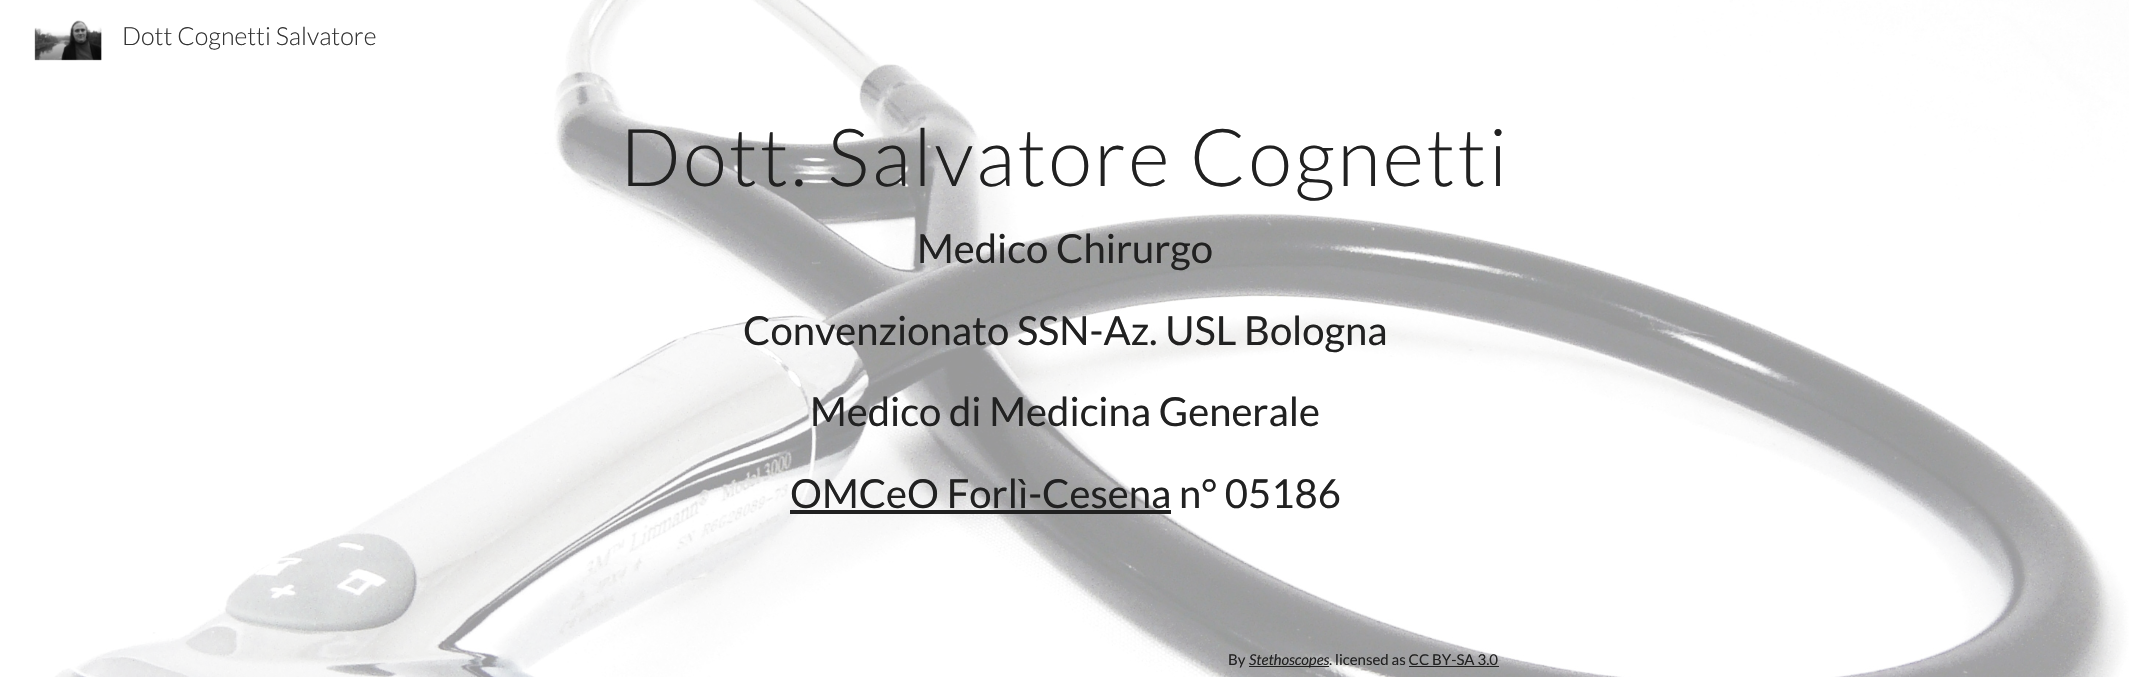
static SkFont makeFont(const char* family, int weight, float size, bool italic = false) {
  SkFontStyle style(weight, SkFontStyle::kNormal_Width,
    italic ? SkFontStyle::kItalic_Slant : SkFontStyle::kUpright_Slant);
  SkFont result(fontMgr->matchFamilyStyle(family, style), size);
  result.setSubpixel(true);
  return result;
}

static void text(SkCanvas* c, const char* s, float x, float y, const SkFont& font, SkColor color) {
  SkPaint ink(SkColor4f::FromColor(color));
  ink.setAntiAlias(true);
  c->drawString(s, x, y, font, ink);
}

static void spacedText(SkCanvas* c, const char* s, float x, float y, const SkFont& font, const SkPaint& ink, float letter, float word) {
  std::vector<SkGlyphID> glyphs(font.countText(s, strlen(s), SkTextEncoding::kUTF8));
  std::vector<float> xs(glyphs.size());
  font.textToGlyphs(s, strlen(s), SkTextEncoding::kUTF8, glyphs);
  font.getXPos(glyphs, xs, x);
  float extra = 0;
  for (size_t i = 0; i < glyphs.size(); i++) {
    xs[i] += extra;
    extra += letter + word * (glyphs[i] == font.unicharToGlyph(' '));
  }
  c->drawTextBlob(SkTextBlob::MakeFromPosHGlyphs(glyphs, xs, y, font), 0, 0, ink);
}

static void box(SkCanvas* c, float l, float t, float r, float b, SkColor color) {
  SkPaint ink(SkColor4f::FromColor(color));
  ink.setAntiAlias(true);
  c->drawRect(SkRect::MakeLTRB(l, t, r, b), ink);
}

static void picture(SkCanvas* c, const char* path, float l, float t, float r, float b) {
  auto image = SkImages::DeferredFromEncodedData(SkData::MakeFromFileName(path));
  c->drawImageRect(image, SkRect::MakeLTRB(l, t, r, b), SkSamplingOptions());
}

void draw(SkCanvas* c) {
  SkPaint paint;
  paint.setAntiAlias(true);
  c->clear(0xffffffff);
  picture(c, "img_02.png", 0, 0, 2129, 677);
  picture(c, "img_01.png", 34, 20, 102, 61);
  SkFont face1 = makeFont("Lato", 300, 25);
  text(c, "Dott Cognetti Salvatore", 122, 45, face1, 0xff333333);
  SkFont face2 = makeFont("Lato", 300, 80);
  paint.setColor(0xff212121);
  spacedText(c, "Dott. Salvatore Cognetti", 620, 186, face2, paint, 2.5f, 0);
  SkFont face3 = makeFont("Lato", 400, 40);
  text(c, "Medico Chirurgo", 917, 263, face3, 0xff212121);
  text(c, "Convenzionato SSN-Az. USL Bologna", 743, 345, face3, 0xff212121);
  text(c, "Medico di Medicina Generale", 810, 426, face3, 0xff212121);
  text(c, "OMCeO Forlì-Cesena n° 05186", 790, 508, face3, 0xff212121);
  box(c, 790, 510, 1171, 514, 0xff212121);
  SkFont face4 = makeFont("Lato", 400, 15);
  text(c, "By", 1228, 665, face4, 0xff212121);
  box(c, 1249, 666, 1329, 667, 0xff212121);
  SkFont face5 = makeFont("Lato", 400, 15, true);
  text(c, "Stethoscopes", 1249, 665, face5, 0xff212121);
  text(c, ". licensed as CC BY-SA 3.0", 1329, 665, face4, 0xff212121);
  box(c, 1409, 666, 1499, 667, 0xff212121);
}
